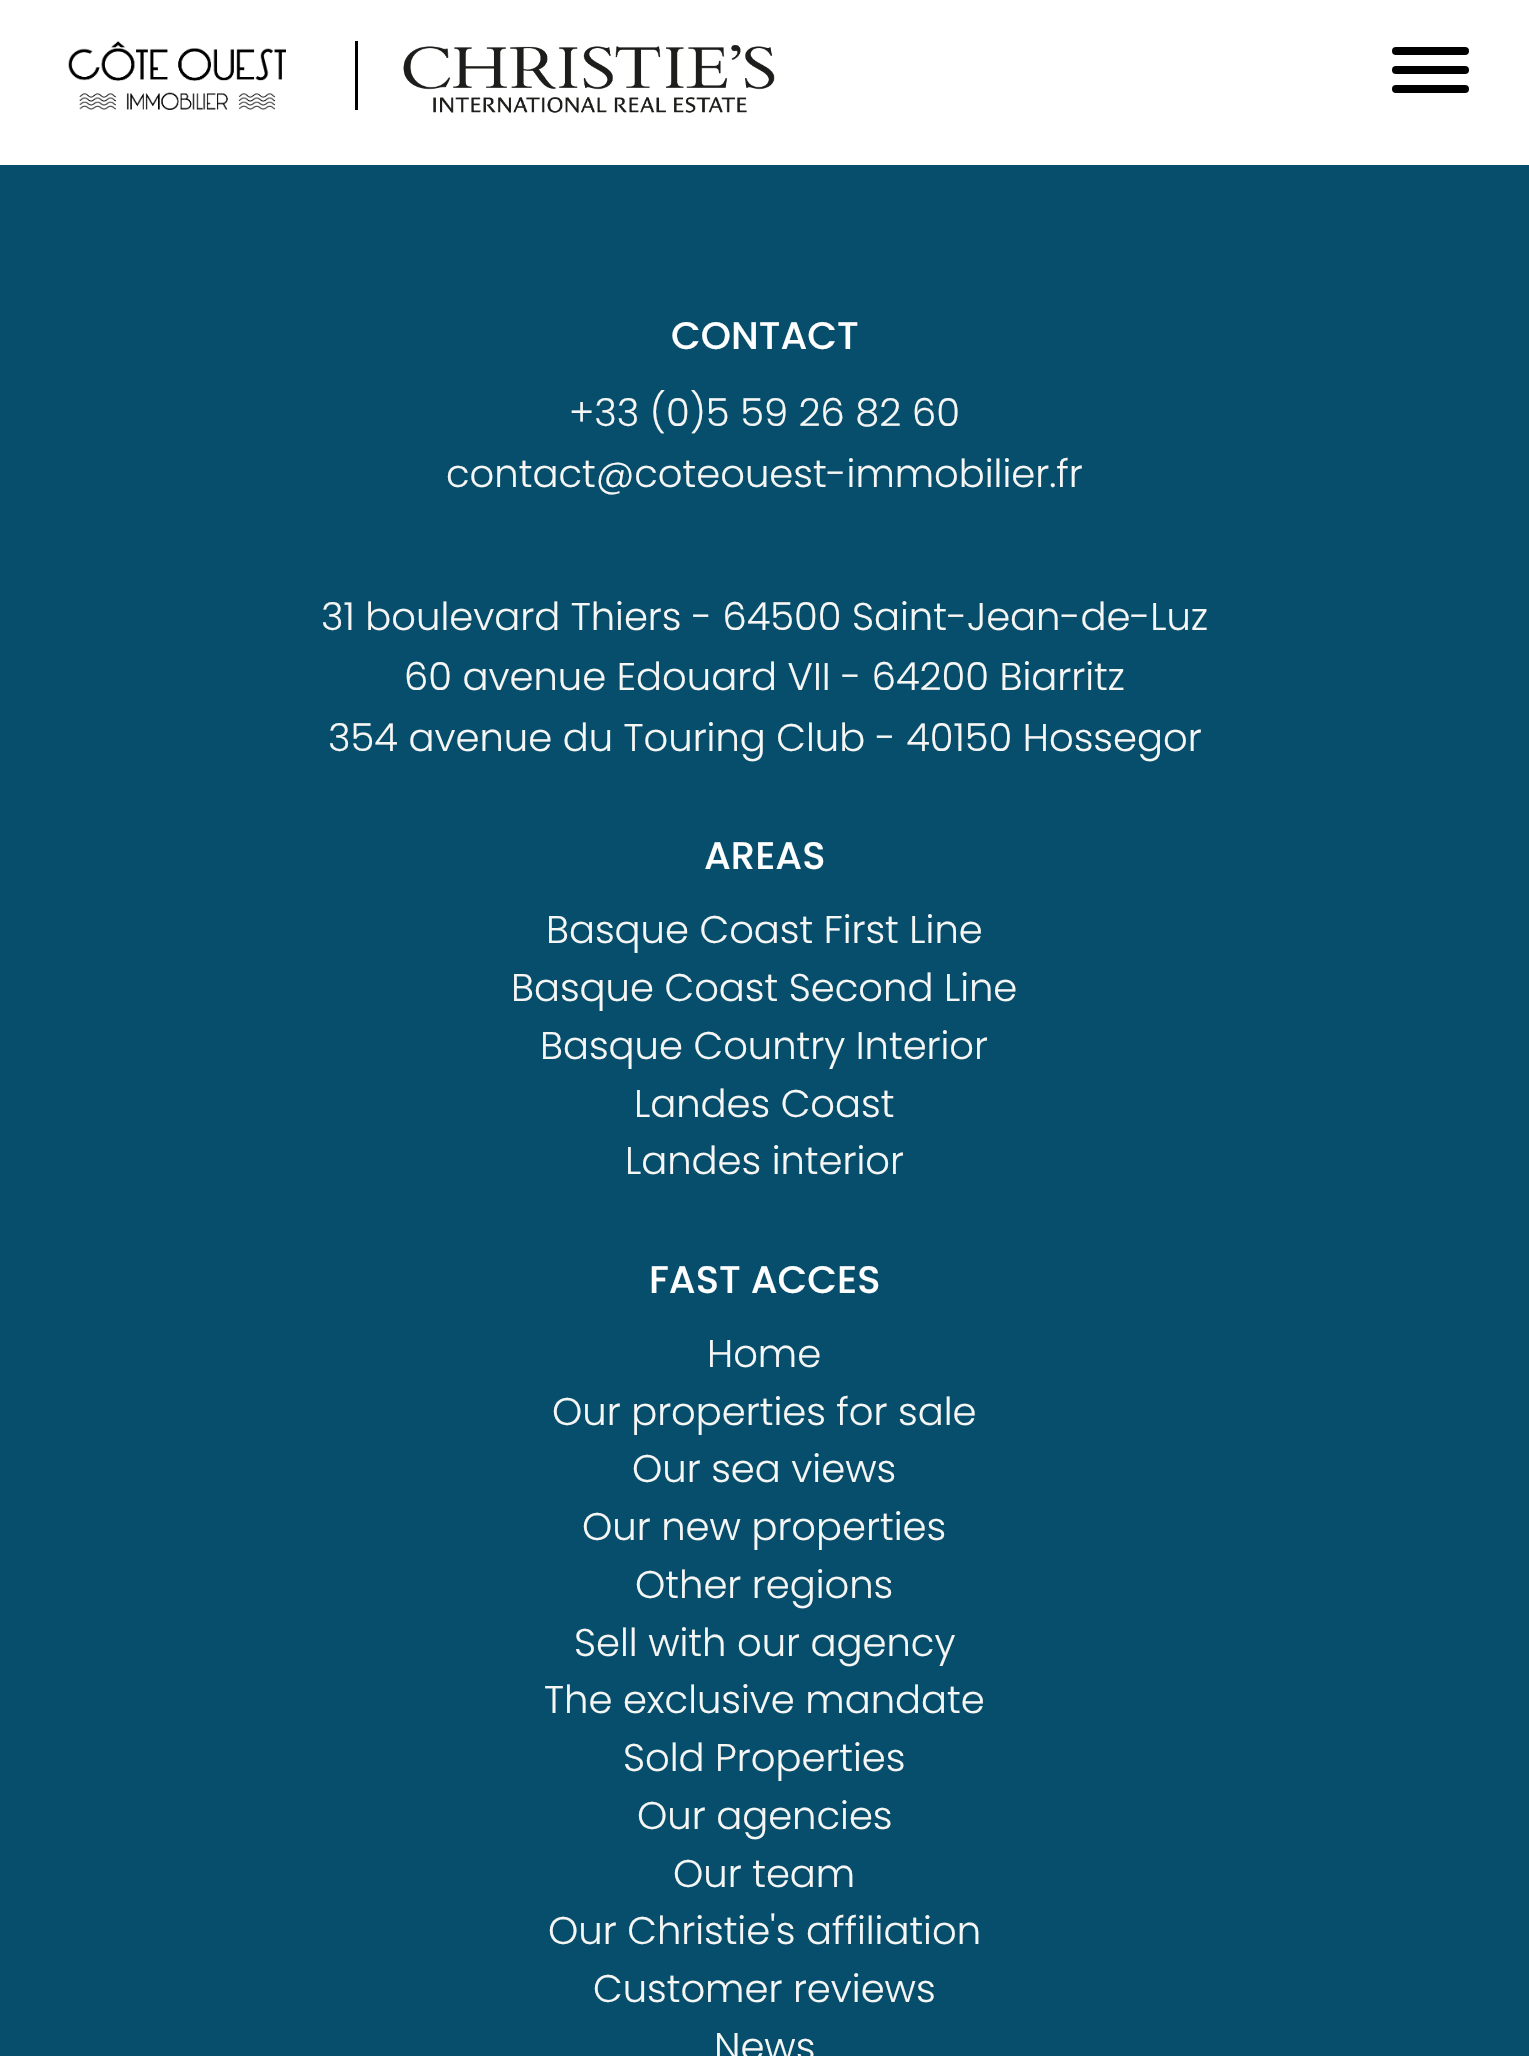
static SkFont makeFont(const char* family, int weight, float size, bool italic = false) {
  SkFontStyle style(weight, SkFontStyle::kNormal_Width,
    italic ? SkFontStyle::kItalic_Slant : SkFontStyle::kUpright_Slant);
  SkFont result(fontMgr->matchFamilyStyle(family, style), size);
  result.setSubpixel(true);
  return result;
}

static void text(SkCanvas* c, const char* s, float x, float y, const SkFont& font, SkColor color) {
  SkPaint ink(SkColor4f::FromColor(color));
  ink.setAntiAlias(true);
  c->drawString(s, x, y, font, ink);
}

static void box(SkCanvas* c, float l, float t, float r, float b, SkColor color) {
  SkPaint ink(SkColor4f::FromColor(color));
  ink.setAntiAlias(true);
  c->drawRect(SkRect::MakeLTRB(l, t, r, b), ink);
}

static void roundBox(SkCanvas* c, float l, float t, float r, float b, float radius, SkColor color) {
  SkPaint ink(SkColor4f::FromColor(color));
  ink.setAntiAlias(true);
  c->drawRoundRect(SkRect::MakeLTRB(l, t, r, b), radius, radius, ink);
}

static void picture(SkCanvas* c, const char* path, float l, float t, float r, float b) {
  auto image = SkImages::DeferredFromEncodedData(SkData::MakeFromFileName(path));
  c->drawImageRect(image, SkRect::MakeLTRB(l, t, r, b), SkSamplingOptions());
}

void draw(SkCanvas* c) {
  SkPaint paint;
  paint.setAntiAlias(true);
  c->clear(0xffffffff);
  box(c, 355, 41, 358, 110, 0xff000000);
  picture(c, "img_01.png", 68, 41, 286, 110);
  picture(c, "img_02.png", 403, 45, 775, 113);
  roundBox(c, 1392, 47, 1469, 55, 4, 0xff000000);
  roundBox(c, 1392, 66, 1469, 74, 4, 0xff000000);
  roundBox(c, 1392, 85, 1469, 93, 4, 0xff000000);
  box(c, 0, 165, 1529, 2056, 0xff064e6c);
  SkFont face1 = makeFont("Poppins", 500, 38.5f);
  text(c, "CONTACT", 671, 349, face1, 0xffffffff);
  SkFont face2 = makeFont("Poppins", 300, 38.5f);
  text(c, "+33 (0)5 59 26 82 60", 569, 426, face2, 0xfff6f6f4);
  text(c, "contact@coteouest-immobilier.fr", 446, 487, face2, 0xfff6f6f4);
  text(c, "31 boulevard Thiers - 64500 Saint-Jean-de-Luz", 321, 630, face2, 0xfff6f6f4);
  text(c, "60 avenue Edouard VII - 64200 Biarritz", 404, 690, face2, 0xfff6f6f4);
  text(c, "354 avenue du Touring Club - 40150 Hossegor", 328, 751, face2, 0xfff6f6f4);
  text(c, "AREAS", 704, 869, face1, 0xffffffff);
  text(c, "Basque Coast First Line", 546, 943, face2, 0xfff6f6f4);
  text(c, "Basque Coast Second Line", 511, 1001, face2, 0xfff6f6f4);
  text(c, "Basque Country Interior", 540, 1059, face2, 0xfff6f6f4);
  text(c, "Landes Coast", 634, 1117, face2, 0xfff6f6f4);
  text(c, "Landes interior", 625, 1174, face2, 0xfff6f6f4);
  text(c, "FAST ACCES", 649, 1293, face1, 0xffffffff);
  text(c, "Home", 707, 1367, face2, 0xfff6f6f4);
  text(c, "Our properties for sale", 552, 1425, face2, 0xfff6f6f4);
  text(c, "Our sea views", 632, 1482, face2, 0xfff6f6f4);
  text(c, "Our new properties", 582, 1540, face2, 0xfff6f6f4);
  text(c, "Other regions", 635, 1598, face2, 0xfff6f6f4);
  text(c, "Sell with our agency", 574, 1656, face2, 0xfff6f6f4);
  text(c, "The exclusive mandate", 544, 1713, face2, 0xfff6f6f4);
  text(c, "Sold Properties", 623, 1771, face2, 0xfff6f6f4);
  text(c, "Our agencies", 637, 1829, face2, 0xfff6f6f4);
  text(c, "Our team", 673, 1887, face2, 0xfff6f6f4);
  text(c, "Our Christie's affiliation", 548, 1944, face2, 0xfff6f6f4);
  text(c, "Customer reviews", 593, 2002, face2, 0xfff6f6f4);
  text(c, "News", 714, 2060, face2, 0xfff6f6f4);
}
